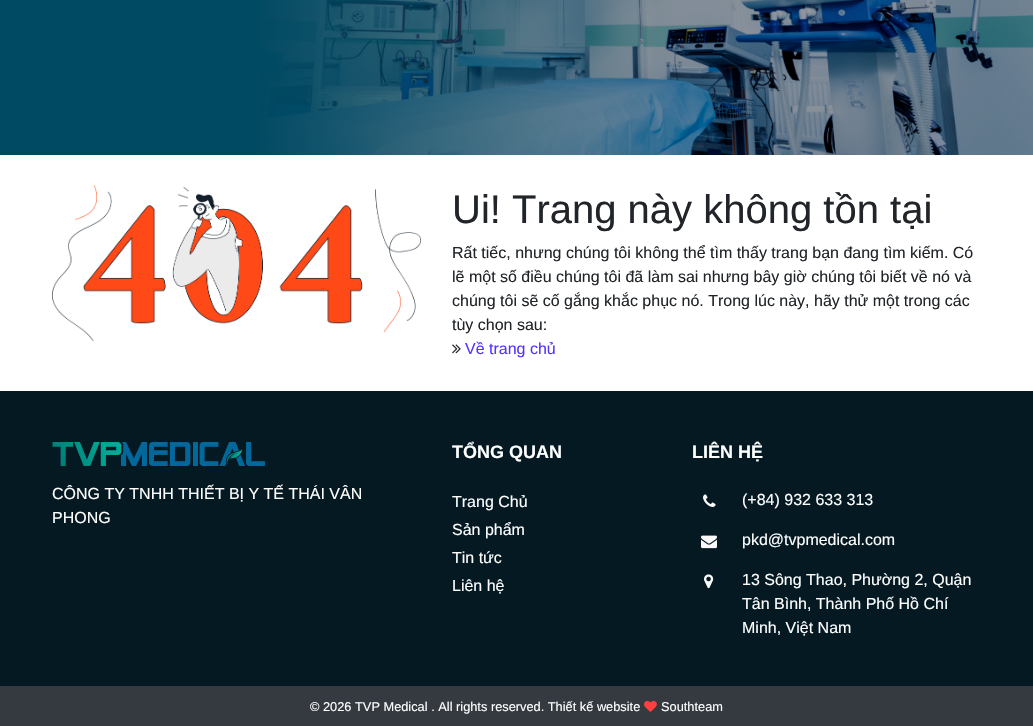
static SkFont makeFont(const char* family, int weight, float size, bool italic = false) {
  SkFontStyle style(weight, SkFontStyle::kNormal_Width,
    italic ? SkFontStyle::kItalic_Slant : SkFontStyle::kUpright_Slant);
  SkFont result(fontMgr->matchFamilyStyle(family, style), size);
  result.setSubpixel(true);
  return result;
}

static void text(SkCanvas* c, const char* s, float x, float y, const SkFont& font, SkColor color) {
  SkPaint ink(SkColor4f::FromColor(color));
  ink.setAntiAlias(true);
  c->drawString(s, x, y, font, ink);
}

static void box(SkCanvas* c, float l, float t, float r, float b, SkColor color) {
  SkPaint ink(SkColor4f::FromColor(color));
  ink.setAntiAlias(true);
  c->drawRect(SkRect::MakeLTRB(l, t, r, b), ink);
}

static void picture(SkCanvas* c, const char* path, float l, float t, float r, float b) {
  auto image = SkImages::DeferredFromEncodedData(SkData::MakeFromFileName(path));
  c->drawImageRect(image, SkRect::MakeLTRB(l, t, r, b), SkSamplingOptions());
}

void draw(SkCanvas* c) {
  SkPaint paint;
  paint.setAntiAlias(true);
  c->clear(0xffffffff);
  picture(c, "img_01.png", 0, 0, 1033, 155);
  picture(c, "img_02.png", 52, 185, 421, 341);
  SkFont face1 = makeFont("Liberation Sans", 400, 40);
  text(c, "Ui! Trang này không tồn tại", 452, 223, face1, 0xff212529);
  SkFont face2 = makeFont("Liberation Sans", 400, 16);
  text(c, "Rất tiếc, nhưng chúng tôi không thể tìm thấy trang bạn đang tìm kiếm. Có", 452, 258, face2, 0xff212529);
  text(c, "lẽ một số điều chúng tôi đã làm sai nhưng bây giờ chúng tôi biết về nó và", 452, 282, face2, 0xff212529);
  text(c, "chúng tôi sẽ cố gắng khắc phục nó. Trong lúc này, hãy thử một trong các", 452, 306, face2, 0xff212529);
  text(c, "tùy chọn sau:", 452, 330, face2, 0xff212529);
  picture(c, "img_03.png", 452, 344, 461, 354);
  text(c, "Về trang chủ", 465, 354, face2, 0xff5533ff);
  box(c, 0, 391, 1033, 686, 0xff051923);
  picture(c, "img_04.png", 52, 442, 265, 466);
  text(c, "CÔNG TY TNHH THIẾT BỊ Y TẾ THÁI VÂN", 52, 499, face2, 0xffffffff);
  text(c, "PHONG", 52, 523, face2, 0xffffffff);
  SkFont face3 = makeFont("Liberation Sans", 700, 18);
  text(c, "TỔNG QUAN", 452, 458, face3, 0xffffffff);
  text(c, "Trang Chủ", 452, 507, face2, 0xffffffff);
  text(c, "Sản phẩm", 452, 535, face2, 0xffffffff);
  text(c, "Tin tức", 452, 563, face2, 0xffffffff);
  text(c, "Liên hệ", 452, 591, face2, 0xffffffff);
  text(c, "LIÊN HỆ", 692, 458, face3, 0xffffffff);
  picture(c, "img_05.png", 703, 494, 716, 507);
  text(c, "(+84) 932 633 313", 742, 505, face2, 0xffffffff);
  picture(c, "img_06.png", 701, 535, 717, 549);
  text(c, "pkd@tvpmedical.com", 742, 545, face2, 0xffffffff);
  picture(c, "img_07.png", 704, 574, 714, 589);
  text(c, "13 Sông Thao, Phường 2, Quận", 742, 585, face2, 0xffffffff);
  text(c, "Tân Bình, Thành Phố Hồ Chí", 742, 609, face2, 0xffffffff);
  text(c, "Minh, Việt Nam", 742, 633, face2, 0xffffffff);
  box(c, 0, 686, 1033, 726, 0xff343a40);
  SkFont face4 = makeFont("Liberation Sans", 400, 12.8f);
  text(c, "© 2026 TVP Medical . All rights reserved. Thiết kế website", 310, 711, face4, 0xffffffff);
  picture(c, "img_08.png", 644, 701, 657, 712);
  text(c, "Southteam", 661, 711, face4, 0xffffffff);
}
